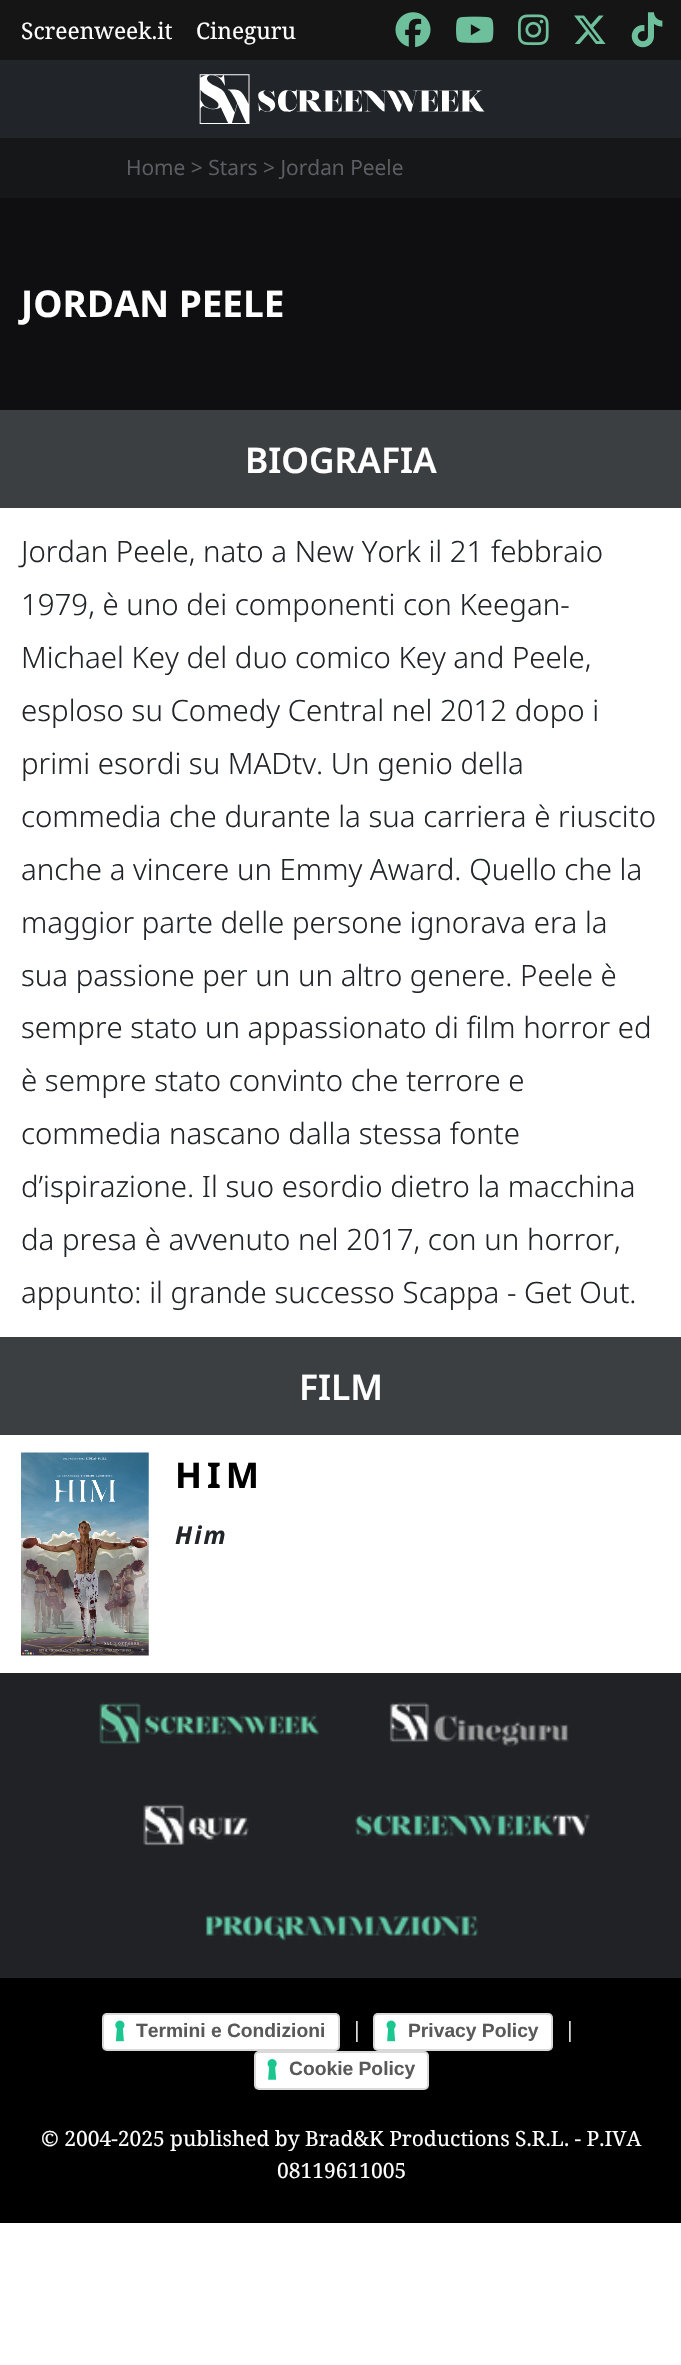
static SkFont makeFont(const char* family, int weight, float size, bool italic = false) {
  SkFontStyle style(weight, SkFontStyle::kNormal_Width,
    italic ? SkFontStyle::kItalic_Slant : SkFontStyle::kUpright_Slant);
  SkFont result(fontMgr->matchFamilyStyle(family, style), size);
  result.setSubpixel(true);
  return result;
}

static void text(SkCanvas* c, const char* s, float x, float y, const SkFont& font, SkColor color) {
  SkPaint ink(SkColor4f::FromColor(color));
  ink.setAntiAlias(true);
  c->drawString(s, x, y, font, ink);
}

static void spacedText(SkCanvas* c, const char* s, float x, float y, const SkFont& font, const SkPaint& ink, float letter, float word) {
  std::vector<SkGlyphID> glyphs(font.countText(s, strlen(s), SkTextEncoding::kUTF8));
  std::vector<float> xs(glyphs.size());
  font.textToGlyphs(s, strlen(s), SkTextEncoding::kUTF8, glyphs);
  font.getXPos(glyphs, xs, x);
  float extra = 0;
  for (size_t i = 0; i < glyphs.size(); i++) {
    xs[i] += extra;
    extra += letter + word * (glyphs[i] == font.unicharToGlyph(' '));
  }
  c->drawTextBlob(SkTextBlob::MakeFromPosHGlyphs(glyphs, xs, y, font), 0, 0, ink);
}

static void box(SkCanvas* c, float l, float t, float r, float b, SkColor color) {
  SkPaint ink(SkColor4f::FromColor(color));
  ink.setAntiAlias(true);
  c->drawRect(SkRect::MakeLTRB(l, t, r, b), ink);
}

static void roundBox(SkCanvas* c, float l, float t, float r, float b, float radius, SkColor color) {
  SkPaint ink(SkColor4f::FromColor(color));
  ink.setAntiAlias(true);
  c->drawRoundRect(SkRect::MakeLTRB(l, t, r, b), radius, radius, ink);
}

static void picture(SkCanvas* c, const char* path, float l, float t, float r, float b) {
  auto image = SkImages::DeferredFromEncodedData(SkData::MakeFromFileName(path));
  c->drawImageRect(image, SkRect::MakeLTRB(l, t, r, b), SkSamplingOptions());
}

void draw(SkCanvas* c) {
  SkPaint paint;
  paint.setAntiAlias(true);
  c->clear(0xffffffff);
  box(c, 0, 0, 681, 60, 0xff151515);
  SkFont face1 = makeFont("Noto Serif", 400, 22.75f);
  text(c, "Screenweek.it", 21, 39, face1, 0xffffffff);
  text(c, "Cineguru", 196, 39, face1, 0xffffffff);
  picture(c, "img_01.png", 395, 12, 431, 48);
  picture(c, "img_02.png", 456, 16, 494, 43);
  picture(c, "img_03.png", 518, 14, 549, 46);
  picture(c, "img_04.png", 574, 15, 606, 44);
  picture(c, "img_05.png", 631, 12, 663, 48);
  box(c, 0, 60, 681, 138, 0xff212529);
  picture(c, "img_06.png", 199, 74, 485, 124);
  box(c, 0, 138, 681, 198, 0xff161719);
  SkFont face2 = makeFont("Open Sans", 400, 21);
  text(c, "Home > Stars > Jordan Peele", 126, 175, face2, 0xff5c5e63);
  box(c, 0, 198, 681, 410, 0xff0f0f11);
  SkFont face3 = makeFont("Open Sans", 700, 36.75f);
  text(c, "JORDAN PEELE", 21, 317, face3, 0xffffffff);
  box(c, 0, 410, 681, 508, 0xff3b3f42);
  SkFont face4 = makeFont("Noto Sans", 600, 35.25f);
  text(c, "BIOGRAFIA", 245, 473, face4, 0xffffffff);
  SkFont face5 = makeFont("Noto Sans", 300, 29.4f);
  text(c, "Jordan Peele, nato a New York il 21 febbraio", 21, 562, face5, 0xff212529);
  text(c, "1979, è uno dei componenti con Keegan-", 21, 615, face5, 0xff212529);
  text(c, "Michael Key del duo comico Key and Peele,", 21, 668, face5, 0xff212529);
  text(c, "esploso su Comedy Central nel 2012 dopo i", 21, 721, face5, 0xff212529);
  text(c, "primi esordi su MADtv. Un genio della", 21, 774, face5, 0xff212529);
  text(c, "commedia che durante la sua carriera è riuscito", 21, 827, face5, 0xff212529);
  text(c, "anche a vincere un Emmy Award. Quello che la", 21, 880, face5, 0xff212529);
  text(c, "maggior parte delle persone ignorava era la", 21, 933, face5, 0xff212529);
  text(c, "sua passione per un un altro genere. Peele è", 21, 986, face5, 0xff212529);
  text(c, "sempre stato un appassionato di film horror ed", 21, 1038, face5, 0xff212529);
  text(c, "è sempre stato convinto che terrore e", 21, 1091, face5, 0xff212529);
  text(c, "commedia nascano dalla stessa fonte", 21, 1144, face5, 0xff212529);
  text(c, "d’ispirazione. Il suo esordio dietro la macchina", 21, 1197, face5, 0xff212529);
  text(c, "da presa è avvenuto nel 2017, con un horror,", 21, 1250, face5, 0xff212529);
  text(c, "appunto: il grande successo Scappa - Get Out.", 21, 1303, face5, 0xff212529);
  box(c, 0, 1337, 681, 1435, 0xff3b3f42);
  text(c, "FILM", 299, 1400, face4, 0xffffffff);
  picture(c, "img_07.png", 21, 1452, 149, 1656);
  SkFont face6 = makeFont("Noto Sans", 700, 35.25f);
  paint.setColor(0xff000000);
  spacedText(c, "HIM", 175, 1488, face6, paint, 5, 0);
  SkFont face7 = makeFont("Noto Sans", 700, 24.5f, true);
  paint.setColor(0xff212529);
  spacedText(c, "Him", 175, 1544, face7, paint, 2, 0);
  box(c, 0, 1673, 681, 1978, 0xff212226);
  picture(c, "img_08.png", 99, 1702, 320, 1745);
  picture(c, "img_09.png", 389, 1702, 569, 1747);
  picture(c, "img_10.png", 143, 1804, 250, 1846);
  picture(c, "img_11.png", 355, 1812, 590, 1839);
  picture(c, "img_12.png", 205, 1915, 479, 1941);
  box(c, 0, 1978, 681, 2223, 0xff000000);
  roundBox(c, 102, 2013, 340, 2051, 5, 0xffffffff);
  picture(c, "img_13.png", 115, 2020, 125, 2042);
  paint.setStyle(SkPaint::kStroke_Style);
  paint.setStrokeWidth(2);
  paint.setColor(0x26000000);
  c->drawRoundRect(SkRect::MakeLTRB(103, 2014, 339, 2050), 4, 4, paint);
  SkFont face8 = makeFont("Liberation Sans", 700, 19.25f);
  text(c, "Termini e Condizioni", 136, 2037, face8, 0xff595959);
  SkFont face9 = makeFont("Noto Serif", 400, 21);
  text(c, "|", 351, 2037, face9, 0xffffffff);
  roundBox(c, 373, 2013, 553, 2051, 5, 0xffffffff);
  picture(c, "img_14.png", 386, 2020, 396, 2042);
  c->drawRoundRect(SkRect::MakeLTRB(374, 2014, 552, 2050), 4, 4, paint);
  text(c, "Privacy Policy", 408, 2037, face8, 0xff595959);
  text(c, "|", 564, 2037, face9, 0xffffffff);
  roundBox(c, 254, 2051, 429, 2090, 5, 0xffffffff);
  picture(c, "img_15.png", 267, 2059, 277, 2080);
  c->drawRoundRect(SkRect::MakeLTRB(255, 2052, 428, 2089), 4, 4, paint);
  text(c, "Cookie Policy", 289, 2075, face8, 0xff595959);
  text(c, "© 2004-2025 published by Brad&K Productions S.R.L. - P.IVA", 41, 2146, face9, 0xffffffff);
  text(c, "08119611005", 277, 2178, face9, 0xffffffff);
}
